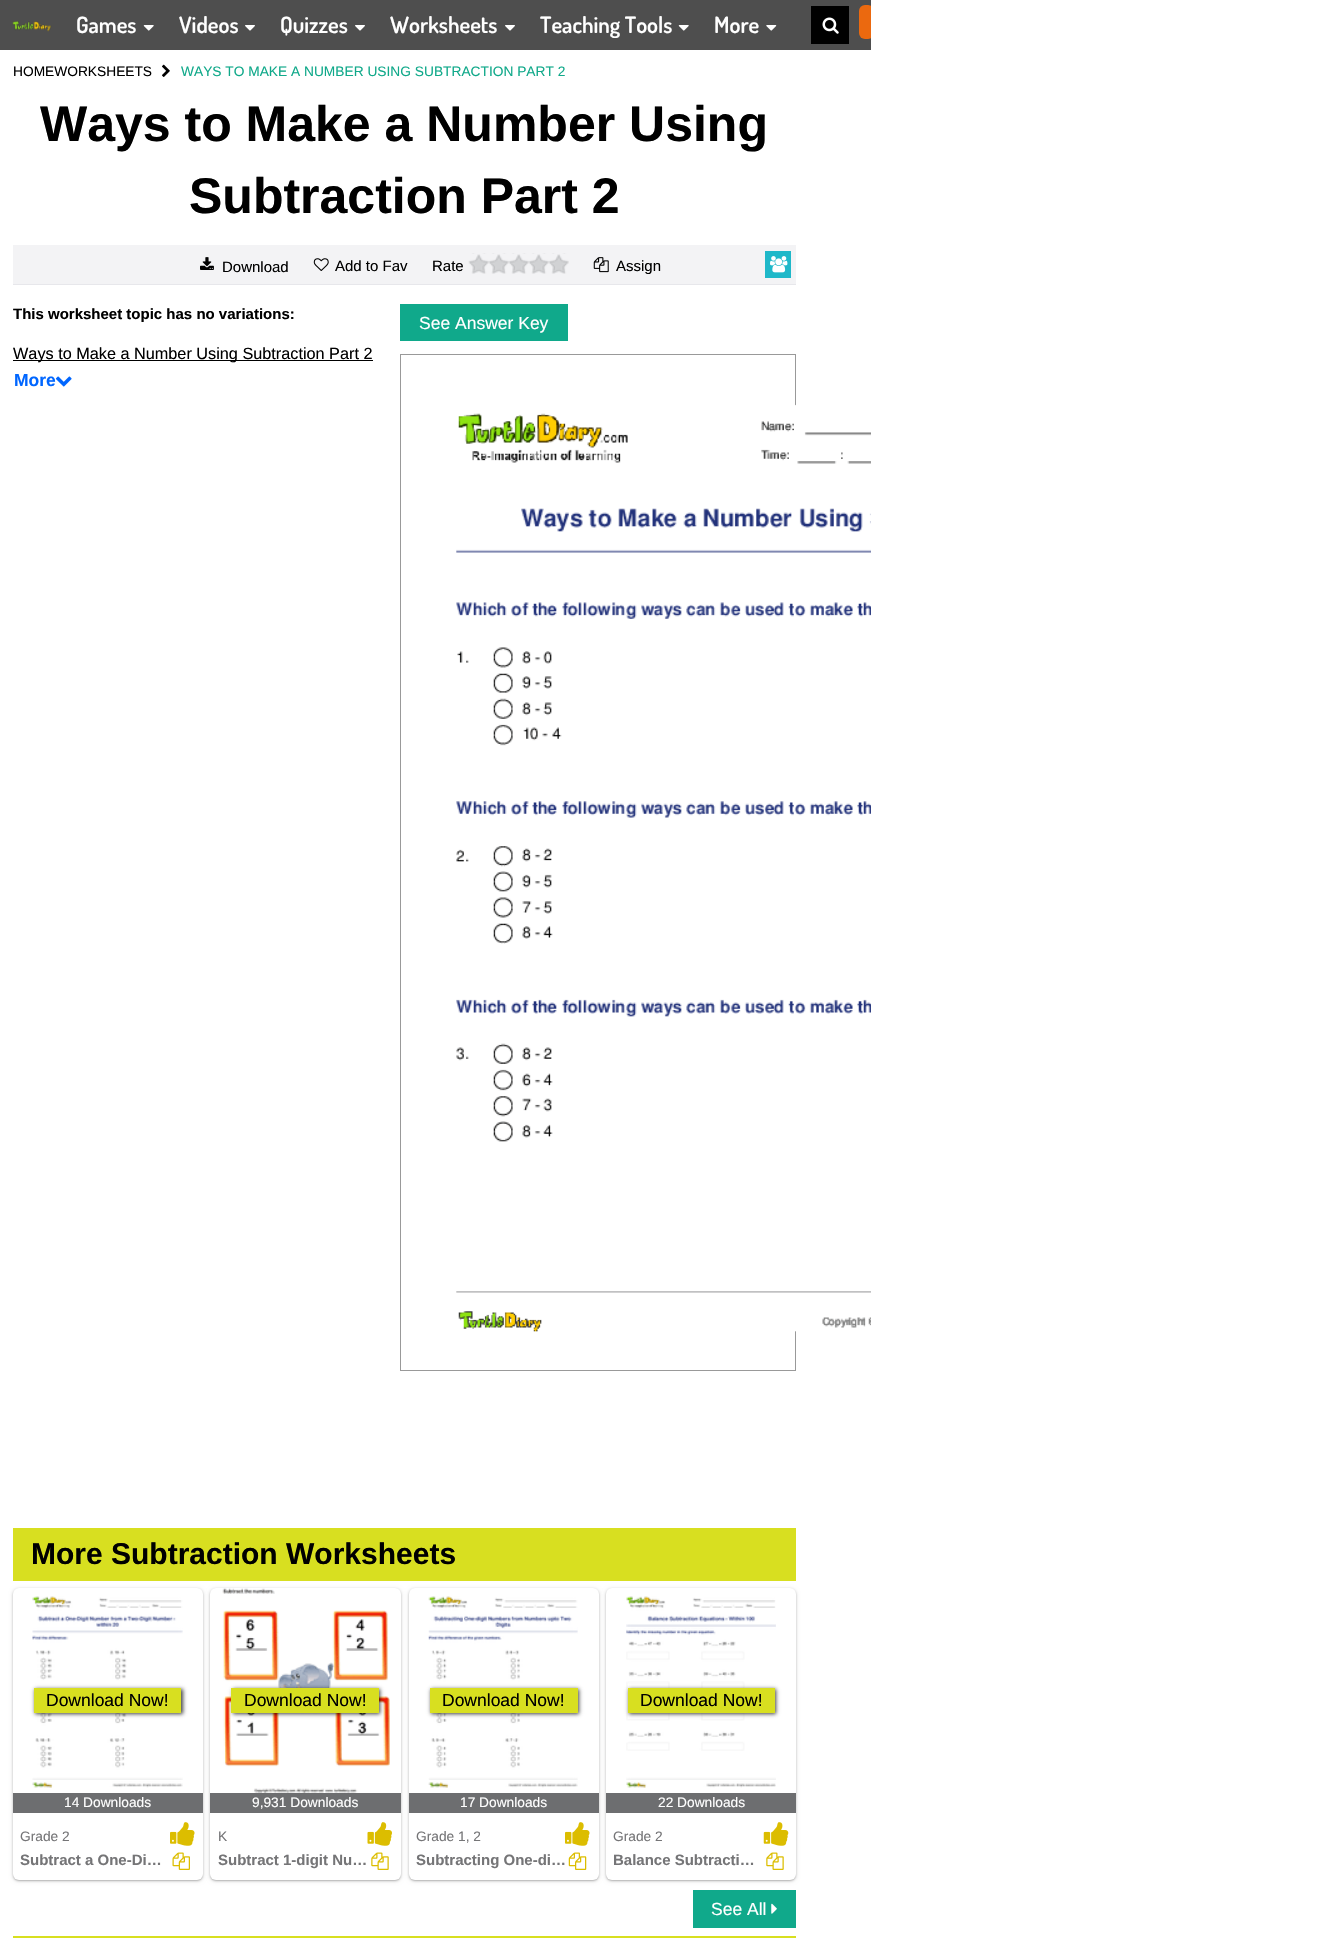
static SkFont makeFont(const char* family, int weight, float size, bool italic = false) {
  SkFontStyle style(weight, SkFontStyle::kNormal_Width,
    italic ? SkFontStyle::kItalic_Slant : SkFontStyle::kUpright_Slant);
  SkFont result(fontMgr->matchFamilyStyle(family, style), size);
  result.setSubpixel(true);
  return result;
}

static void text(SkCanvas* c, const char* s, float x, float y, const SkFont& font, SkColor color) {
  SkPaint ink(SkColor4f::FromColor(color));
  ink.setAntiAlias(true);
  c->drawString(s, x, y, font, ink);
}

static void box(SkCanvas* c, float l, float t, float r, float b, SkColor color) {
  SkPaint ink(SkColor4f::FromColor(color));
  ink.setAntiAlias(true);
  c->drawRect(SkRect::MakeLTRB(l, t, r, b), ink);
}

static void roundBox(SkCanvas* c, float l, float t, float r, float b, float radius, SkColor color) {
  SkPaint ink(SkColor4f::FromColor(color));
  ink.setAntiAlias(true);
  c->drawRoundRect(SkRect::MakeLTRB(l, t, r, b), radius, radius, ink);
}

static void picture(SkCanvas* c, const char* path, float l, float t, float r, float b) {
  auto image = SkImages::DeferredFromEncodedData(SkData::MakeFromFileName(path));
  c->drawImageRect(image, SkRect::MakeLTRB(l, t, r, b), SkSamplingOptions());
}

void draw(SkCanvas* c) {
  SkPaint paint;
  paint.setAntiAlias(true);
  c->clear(0xffffffff);
  box(c, 0, 0, 871, 50, 0xff4e4e4e);
  picture(c, "img_01.png", 12, 21, 52, 32);
  SkFont face1 = makeFont("Dosis", 600, 22.5f);
  text(c, "Games", 76, 33, face1, 0xffffffff);
  picture(c, "img_02.png", 143, 25, 154, 31);
  text(c, "Videos", 179, 33, face1, 0xffffffff);
  picture(c, "img_03.png", 245, 25, 255, 31);
  text(c, "Quizzes", 280, 33, face1, 0xffffffff);
  picture(c, "img_03.png", 355, 25, 365, 31);
  text(c, "Worksheets", 390, 33, face1, 0xffffffff);
  picture(c, "img_03.png", 505, 25, 515, 31);
  text(c, "Teaching Tools", 540, 33, face1, 0xffffffff);
  picture(c, "img_02.png", 678, 25, 689, 31);
  text(c, "More", 714, 33, face1, 0xffffffff);
  picture(c, "img_04.png", 766, 25, 777, 31);
  box(c, 811, 6, 849, 44, 0xff000000);
  picture(c, "img_05.png", 822, 17, 839, 34);
  roundBox(c, 859, 5, 874, 39, 6, 0xffeb690f);
  box(c, 871, 5, 874, 39, 0xffffffff);
  SkFont face2 = makeFont("Liberation Sans", 400, 13.75f);
  text(c, "HOMEWORKSHEETS", 13, 76, face2, 0xff000000);
  picture(c, "img_06.png", 162, 64, 170, 77);
  text(c, "WAYS TO MAKE A NUMBER USING SUBTRACTION PART 2", 181, 76, face2, 0xff10a98a);
  SkFont face3 = makeFont("Liberation Sans", 700, 50);
  text(c, "Ways to Make a Number Using", 40, 141, face3, 0xff000000);
  text(c, "Subtraction Part 2", 189, 213, face3, 0xff000000);
  box(c, 13, 245, 796, 284, 0xfff3f3f5);
  picture(c, "img_07.png", 200, 257, 214, 270);
  SkFont face4 = makeFont("Liberation Sans", 400, 15);
  text(c, "Download", 222, 272, face4, 0xff000000);
  picture(c, "img_08.png", 313, 258, 329, 271);
  text(c, "Add to Fav", 335, 271, face4, 0xff000000);
  text(c, "Rate", 432, 271, face4, 0xff000000);
  picture(c, "img_09.png", 468, 253, 569, 274);
  picture(c, "img_10.png", 593, 257, 609, 273);
  text(c, "Assign", 616, 271, face4, 0xff000000);
  box(c, 765, 251, 791, 278, 0xff1fb8c9);
  picture(c, "img_11.png", 770, 256, 788, 273);
  box(c, 13, 284, 796, 285, 0xffe7e7eb);
  SkFont face5 = makeFont("Liberation Sans", 700, 15);
  text(c, "This worksheet topic has no variations:", 13, 319, face5, 0xff000000);
  box(c, 13, 360, 373, 361, 0xff000000);
  SkFont face6 = makeFont("Liberation Sans", 400, 16.25f);
  text(c, "Ways to Make a Number Using Subtraction Part 2", 13, 359, face6, 0xff000000);
  SkFont face7 = makeFont("Liberation Sans", 700, 17.5f);
  text(c, "More", 14, 386, face7, 0xff0066ff);
  picture(c, "img_12.png", 55, 376, 72, 387);
  box(c, 400, 304, 568, 341, 0xff10a98b);
  SkFont face8 = makeFont("Liberation Sans", 400, 17.5f);
  text(c, "See Answer Key", 419, 329, face8, 0xffffffff);
  paint.setStyle(SkPaint::kStroke_Style);
  paint.setStrokeWidth(1);
  paint.setColor(0xff999999);
  c->drawRect(SkRect::MakeLTRB(400.5f, 354.5f, 795.5f, 1370.5f), paint);
  picture(c, "img_13.png", 456, 404, 871, 1332);
  box(c, 13, 1528, 796, 1581, 0xffd8df20);
  SkFont face9 = makeFont("Liberation Sans", 700, 30);
  text(c, "More Subtraction Worksheets", 31, 1564, face9, 0xff000000);
  paint.setStyle(SkPaint::kFill_Style);
  paint.setColor(0x3d000000);
  paint.setMaskFilter(SkMaskFilter::MakeBlur(kNormal_SkBlurStyle, 1));
  c->drawRoundRect(SkRect::MakeLTRB(13, 1589, 203, 1881), 6, 6, paint);
  paint.setMaskFilter(nullptr);
  paint.setColor(0x1f000000);
  paint.setMaskFilter(SkMaskFilter::MakeBlur(kNormal_SkBlurStyle, 2));
  c->drawRoundRect(SkRect::MakeLTRB(13, 1589, 203, 1881), 6, 6, paint);
  paint.setMaskFilter(nullptr);
  roundBox(c, 13, 1588, 203, 1880, 6, 0xffffffff);
  picture(c, "img_14.png", 32, 1596, 183, 1788);
  picture(c, "img_15.png", 32, 1597, 183, 1788);
  paint.setColor(0xbf000000);
  paint.setMaskFilter(SkMaskFilter::MakeBlur(kNormal_SkBlurStyle, 2));
  c->drawRect(SkRect::MakeLTRB(35, 1689, 183, 1714), paint);
  paint.setMaskFilter(nullptr);
  box(c, 34, 1688, 181, 1713, 0xffd8df20);
  text(c, "Download Now!", 46, 1706, face8, 0xff000000);
  box(c, 13, 1793, 203, 1813, 0xff6d6e70);
  text(c, "14 Downloads", 64, 1807, face2, 0xffffffff);
  text(c, "Grade 2", 20, 1841, face2, 0xff757577);
  picture(c, "img_16.png", 170, 1822, 195, 1846);
  text(c, "Subtract a One-Di…", 20, 1865, face5, 0xff757577);
  picture(c, "img_17.png", 172, 1852, 190, 1870);
  paint.setColor(0x3d000000);
  paint.setMaskFilter(SkMaskFilter::MakeBlur(kNormal_SkBlurStyle, 1));
  c->drawRoundRect(SkRect::MakeLTRB(210, 1589, 401, 1881), 6, 6, paint);
  paint.setMaskFilter(nullptr);
  paint.setColor(0x1f000000);
  paint.setMaskFilter(SkMaskFilter::MakeBlur(kNormal_SkBlurStyle, 2));
  c->drawRoundRect(SkRect::MakeLTRB(210, 1589, 401, 1881), 6, 6, paint);
  paint.setMaskFilter(nullptr);
  roundBox(c, 210, 1588, 401, 1880, 6, 0xffffffff);
  picture(c, "img_18.png", 222, 1588, 390, 1793);
  paint.setColor(0xbf000000);
  paint.setMaskFilter(SkMaskFilter::MakeBlur(kNormal_SkBlurStyle, 2));
  c->drawRect(SkRect::MakeLTRB(233, 1689, 380, 1714), paint);
  paint.setMaskFilter(nullptr);
  box(c, 231, 1688, 379, 1713, 0xffd8df20);
  text(c, "Download Now!", 244, 1706, face8, 0xff000000);
  picture(c, "img_19.png", 255, 1792, 356, 1793);
  box(c, 210, 1793, 401, 1813, 0xff6d6e70);
  text(c, "9,931 Downloads", 252, 1807, face2, 0xffffffff);
  text(c, "K", 218, 1841, face2, 0xff757577);
  picture(c, "img_20.png", 367, 1822, 392, 1846);
  text(c, "Subtract 1-digit Nu…", 218, 1865, face5, 0xff757577);
  picture(c, "img_21.png", 371, 1852, 389, 1870);
  paint.setColor(0x3d000000);
  paint.setMaskFilter(SkMaskFilter::MakeBlur(kNormal_SkBlurStyle, 1));
  c->drawRoundRect(SkRect::MakeLTRB(409, 1589, 599, 1881), 6, 6, paint);
  paint.setMaskFilter(nullptr);
  paint.setColor(0x1f000000);
  paint.setMaskFilter(SkMaskFilter::MakeBlur(kNormal_SkBlurStyle, 2));
  c->drawRoundRect(SkRect::MakeLTRB(409, 1589, 599, 1881), 6, 6, paint);
  paint.setMaskFilter(nullptr);
  roundBox(c, 409, 1588, 599, 1880, 6, 0xffffffff);
  picture(c, "img_22.png", 428, 1596, 578, 1788);
  picture(c, "img_23.png", 428, 1597, 578, 1788);
  paint.setColor(0xbf000000);
  paint.setMaskFilter(SkMaskFilter::MakeBlur(kNormal_SkBlurStyle, 2));
  c->drawRect(SkRect::MakeLTRB(431, 1689, 579, 1714), paint);
  paint.setMaskFilter(nullptr);
  box(c, 430, 1688, 578, 1713, 0xffd8df20);
  text(c, "Download Now!", 442, 1706, face8, 0xff000000);
  box(c, 409, 1793, 599, 1813, 0xff6d6e70);
  text(c, "17 Downloads", 460, 1807, face2, 0xffffffff);
  text(c, "Grade 1, 2", 416, 1841, face2, 0xff757577);
  picture(c, "img_16.png", 565, 1822, 590, 1846);
  text(c, "Subtracting One-di…", 416, 1865, face5, 0xff757577);
  picture(c, "img_24.png", 568, 1852, 587, 1870);
  paint.setColor(0x3d000000);
  paint.setMaskFilter(SkMaskFilter::MakeBlur(kNormal_SkBlurStyle, 1));
  c->drawRoundRect(SkRect::MakeLTRB(606, 1589, 796, 1881), 6, 6, paint);
  paint.setMaskFilter(nullptr);
  paint.setColor(0x1f000000);
  paint.setMaskFilter(SkMaskFilter::MakeBlur(kNormal_SkBlurStyle, 2));
  c->drawRoundRect(SkRect::MakeLTRB(606, 1589, 796, 1881), 6, 6, paint);
  paint.setMaskFilter(nullptr);
  roundBox(c, 606, 1588, 796, 1880, 6, 0xffffffff);
  picture(c, "img_25.png", 626, 1596, 776, 1788);
  picture(c, "img_26.png", 626, 1597, 776, 1788);
  paint.setColor(0xbf000000);
  paint.setMaskFilter(SkMaskFilter::MakeBlur(kNormal_SkBlurStyle, 2));
  c->drawRect(SkRect::MakeLTRB(629, 1689, 776, 1714), paint);
  paint.setMaskFilter(nullptr);
  box(c, 628, 1688, 775, 1713, 0xffd8df20);
  text(c, "Download Now!", 640, 1706, face8, 0xff000000);
  box(c, 606, 1793, 796, 1813, 0xff6d6e70);
  text(c, "22 Downloads", 658, 1807, face2, 0xffffffff);
  text(c, "Grade 2", 613, 1841, face2, 0xff757577);
  picture(c, "img_27.png", 763, 1822, 789, 1846);
  text(c, "Balance Subtracti…", 613, 1865, face5, 0xff757577);
  picture(c, "img_21.png", 766, 1852, 784, 1870);
  box(c, 693, 1890, 796, 1928, 0xff10a98b);
  text(c, "See All", 711, 1915, face8, 0xffffffff);
  picture(c, "img_28.png", 771, 1903, 777, 1914);
  box(c, 13, 1936, 796, 1938, 0xffd8df20);
}
